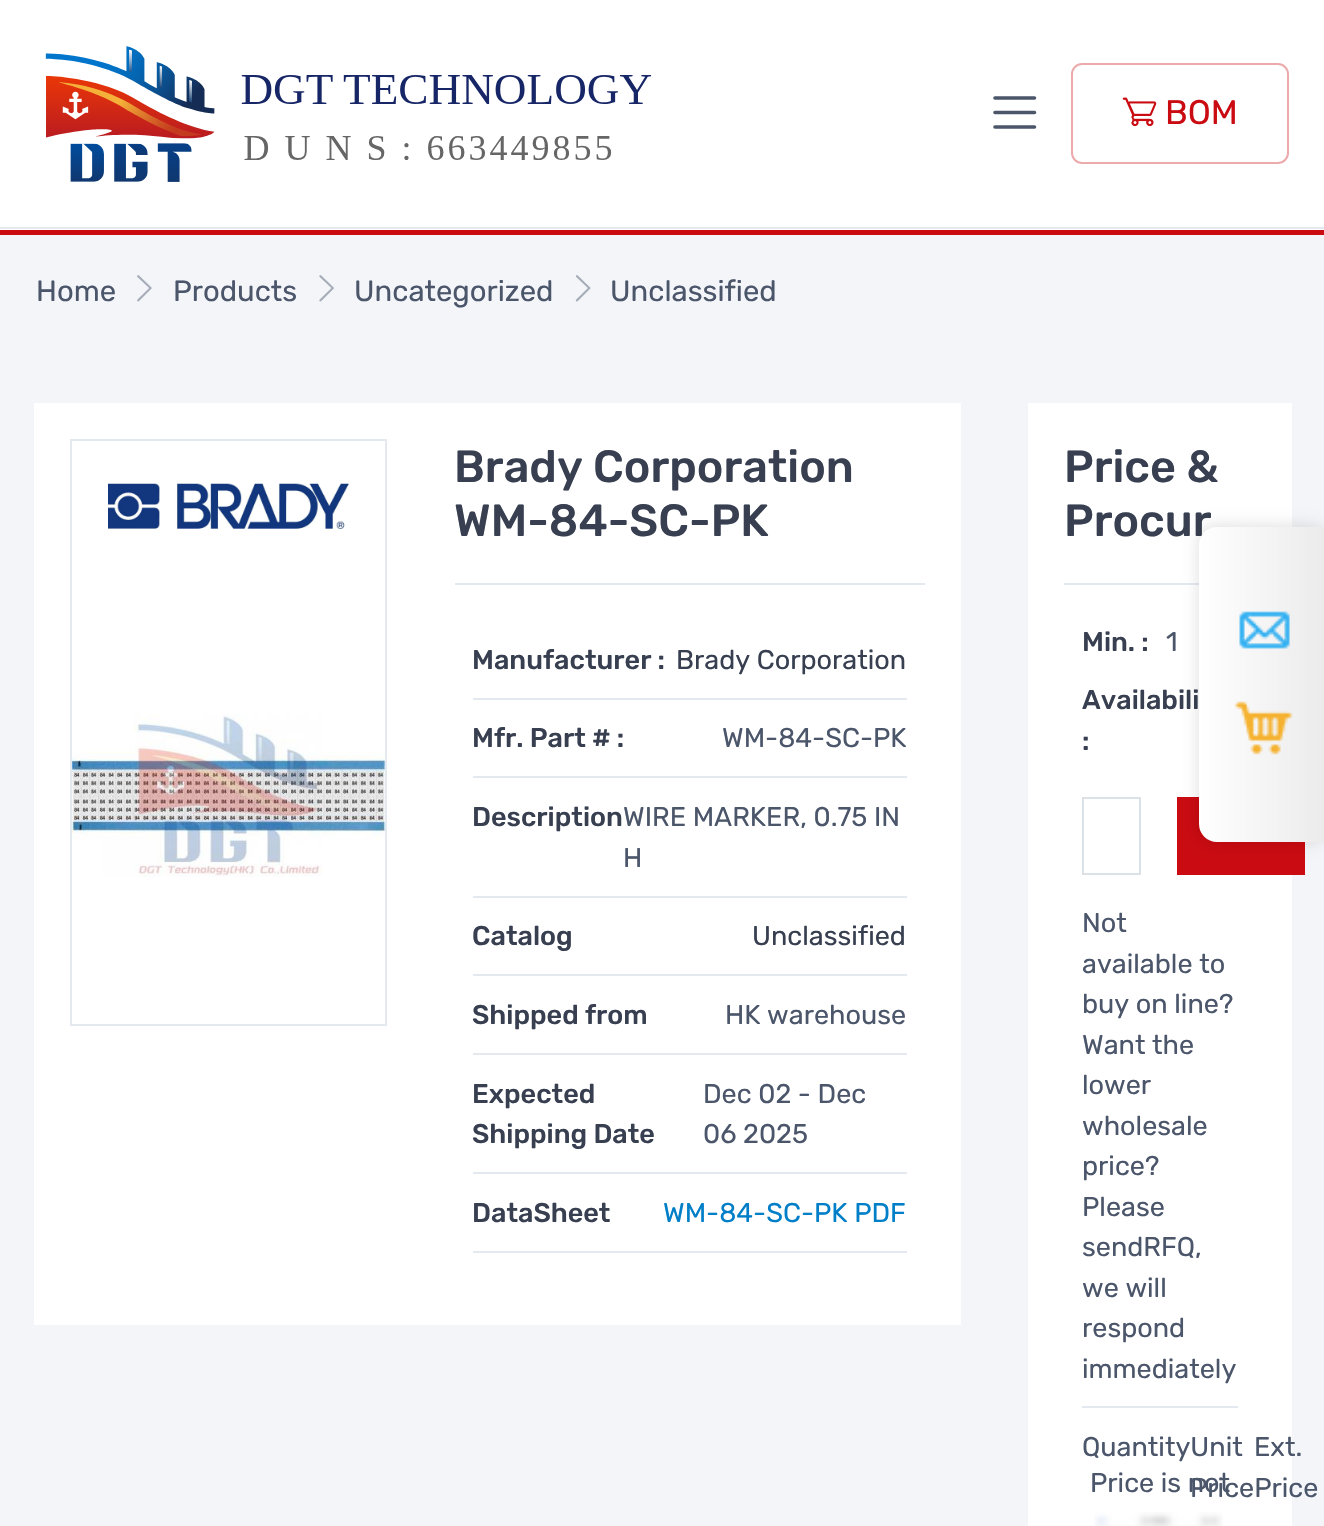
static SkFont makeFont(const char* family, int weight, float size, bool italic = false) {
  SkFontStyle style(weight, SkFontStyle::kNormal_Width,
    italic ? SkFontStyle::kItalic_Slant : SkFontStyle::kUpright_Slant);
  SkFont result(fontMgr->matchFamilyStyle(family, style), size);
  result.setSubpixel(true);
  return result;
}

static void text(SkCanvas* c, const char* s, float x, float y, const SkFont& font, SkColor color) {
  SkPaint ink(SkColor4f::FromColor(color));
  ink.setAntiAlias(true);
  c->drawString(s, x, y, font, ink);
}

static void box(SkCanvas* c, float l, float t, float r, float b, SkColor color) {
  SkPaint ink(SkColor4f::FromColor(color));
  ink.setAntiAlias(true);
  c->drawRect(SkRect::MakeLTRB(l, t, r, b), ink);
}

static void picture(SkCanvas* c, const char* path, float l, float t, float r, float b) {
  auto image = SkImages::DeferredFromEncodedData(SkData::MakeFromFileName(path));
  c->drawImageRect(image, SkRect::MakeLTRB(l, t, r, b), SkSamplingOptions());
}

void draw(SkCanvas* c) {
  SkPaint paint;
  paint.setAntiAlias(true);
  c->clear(0xfff3f5f9);
  box(c, 0, 0, 1324, 230, 0xffffffff);
  picture(c, "img_01.png", 45, 46, 652, 182);
  paint.setStyle(SkPaint::kStroke_Style);
  paint.setStrokeWidth(3.6f);
  paint.setStrokeCap(SkPaint::kRound_Cap);
  paint.setColor(0xff4b566b);
  c->drawPath(SkPathBuilder().moveTo(995, 98).lineTo(1034.5f, 98).moveTo(995, 112.5f).lineTo(1034.5f, 112.5f).moveTo(995, 127).lineTo(1034.5f, 127).detach(), paint);
  paint.setStrokeWidth(2);
  paint.setStrokeCap(SkPaint::kButt_Cap);
  paint.setColor(0xffecaaac);
  c->drawRoundRect(SkRect::MakeLTRB(1072, 64, 1288, 163), 10, 10, paint);
  picture(c, "img_02.png", 1122, 97, 1157, 127);
  SkFont face1 = makeFont("Rubik", 400, 34);
  text(c, "BOM", 1165, 124, face1, 0xffca0b12);
  box(c, 0, 227, 1324, 229, 0xffe3e9ef);
  box(c, 0, 230, 1324, 235, 0xffca0b12);
  SkFont face2 = makeFont("Rubik", 400, 29.25f);
  text(c, "Home", 36, 301, face2, 0xff4b566b);
  picture(c, "img_03.png", 137, 275, 152, 302);
  text(c, "Products", 173, 301, face2, 0xff4b566b);
  picture(c, "img_04.png", 319, 275, 334, 302);
  text(c, "Uncategorized", 354, 301, face2, 0xff4b566b);
  picture(c, "img_05.png", 575, 275, 591, 302);
  text(c, "Unclassified", 610, 301, face2, 0xff4b566b);
  box(c, 34, 403, 961, 1325, 0xffffffff);
  paint.setColor(0xffe3e9ef);
  c->drawRect(SkRect::MakeLTRB(71, 440, 386, 1025), paint);
  picture(c, "img_06.png", 108, 483, 349, 529);
  picture(c, "img_07.png", 72, 714, 385, 877);
  box(c, 455, 583, 925, 585, 0xffe3e9ef);
  SkFont face3 = makeFont("Rubik", 500, 45);
  text(c, "Brady Corporation", 454, 482, face3, 0xff373f50);
  text(c, "WM-84-SC-PK", 454, 536, face3, 0xff373f50);
  box(c, 473, 698, 907, 700, 0xffe3e9ef);
  SkFont face4 = makeFont("Rubik", 500, 27);
  text(c, "Manufacturer :", 472, 669, face4, 0xff373f50);
  SkFont face5 = makeFont("Rubik", 400, 27);
  text(c, "Brady Corporation", 676, 669, face5, 0xff373f50);
  box(c, 473, 776, 907, 778, 0xffe3e9ef);
  text(c, "Mfr. Part # :", 472, 747, face4, 0xff373f50);
  text(c, "WM-84-SC-PK", 722, 747, face5, 0xff4b566b);
  box(c, 473, 896, 907, 898, 0xffe3e9ef);
  text(c, "Description", 472, 826, face4, 0xff373f50);
  text(c, "WIRE MARKER, 0.75 IN", 623, 826, face5, 0xff4b566b);
  text(c, "H", 623, 867, face5, 0xff4b566b);
  box(c, 473, 974, 907, 976, 0xffe3e9ef);
  text(c, "Catalog", 472, 945, face4, 0xff373f50);
  text(c, "Unclassified", 752, 945, face5, 0xff373f50);
  box(c, 473, 1053, 907, 1055, 0xffe3e9ef);
  text(c, "Shipped from", 472, 1024, face4, 0xff373f50);
  text(c, "HK warehouse", 725, 1024, face5, 0xff4b566b);
  box(c, 473, 1172, 907, 1174, 0xffe3e9ef);
  text(c, "Expected", 472, 1103, face4, 0xff373f50);
  text(c, "Shipping Date", 472, 1143, face4, 0xff373f50);
  text(c, "Dec 02 - Dec", 703, 1103, face5, 0xff4b566b);
  text(c, "06 2025", 703, 1143, face5, 0xff4b566b);
  box(c, 473, 1251, 907, 1253, 0xffe3e9ef);
  text(c, "DataSheet", 472, 1222, face4, 0xff373f50);
  text(c, "WM-84-SC-PK PDF", 663, 1222, face5, 0xff007fc8);
  box(c, 1028, 403, 1292, 1526, 0xffffffff);
  box(c, 1064, 583, 1199, 585, 0xffe3e9ef);
  text(c, "Price &", 1064, 482, face3, 0xff373f50);
  text(c, "Procur", 1064, 536, face3, 0xff373f50);
  text(c, "Min. :", 1082, 651, face4, 0xff373f50);
  text(c, "1", 1166, 651, face5, 0xff4b566b);
  text(c, "Availabili", 1082, 709, face4, 0xff373f50);
  text(c, ":", 1082, 750, face4, 0xff373f50);
  paint.setColor(0xffdae1e7);
  c->drawRect(SkRect::MakeLTRB(1083, 798, 1140, 874), paint);
  box(c, 1177, 797, 1305, 875, 0xffca0b12);
  box(c, 1082, 1406, 1238, 1408, 0xffe3e9ef);
  text(c, "Not", 1082, 932, face5, 0xff4b566b);
  text(c, "available to", 1082, 973, face5, 0xff4b566b);
  text(c, "buy on line?", 1082, 1013, face5, 0xff4b566b);
  text(c, "Want the", 1082, 1054, face5, 0xff4b566b);
  text(c, "lower", 1082, 1094, face5, 0xff4b566b);
  text(c, "wholesale", 1082, 1135, face5, 0xff4b566b);
  text(c, "price?", 1082, 1175, face5, 0xff4b566b);
  text(c, "Please", 1082, 1216, face5, 0xff4b566b);
  text(c, "sendRFQ,", 1082, 1256, face5, 0xff4b566b);
  text(c, "we will", 1082, 1297, face5, 0xff4b566b);
  text(c, "respond", 1082, 1337, face5, 0xff4b566b);
  text(c, "immediately", 1082, 1378, face5, 0xff4b566b);
  text(c, "QuantityUnit", 1082, 1456, face5, 0xff4b566b);
  text(c, "Ext.", 1254, 1456, face5, 0xff4b566b);
  text(c, "PricePrice", 1190, 1497, face5, 0xff4b566b);
  text(c, "Price is not", 1090, 1492, face5, 0xff4b566b);
  picture(c, "img_08.png", 1094, 1512, 1223, 1526);
  paint.setStyle(SkPaint::kFill_Style);
  paint.setColor(0x1a000000);
  paint.setMaskFilter(SkMaskFilter::MakeBlur(kNormal_SkBlurStyle, 7));
  c->drawRoundRect(SkRect::MakeLTRB(1197, 524, 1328, 844), 20, 20, paint);
  paint.setMaskFilter(nullptr);
  {
    const SkColor colors[] = {0xffffffff, 0xffebebeb};
    const float stops[] = {0, 1};
    const SkPoint ends[] = {{1199, 684}, {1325, 684}};
    paint.setShader(SkGradientShader::MakeLinear(ends, colors, stops, 2, SkTileMode::kClamp));
    paint.setAlpha(255);
  }
  c->drawPath(SkPathBuilder().moveTo(1217, 527).lineTo(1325, 527).lineTo(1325, 842).lineTo(1217, 842).cubicTo(1207, 842, 1199, 834, 1199, 824).lineTo(1199, 545).cubicTo(1199, 535, 1207, 527, 1217, 527).close().detach(), paint);
  picture(c, "img_09.png", 1239, 611, 1290, 649);
  picture(c, "img_10.png", 1234, 701, 1293, 755);
}
